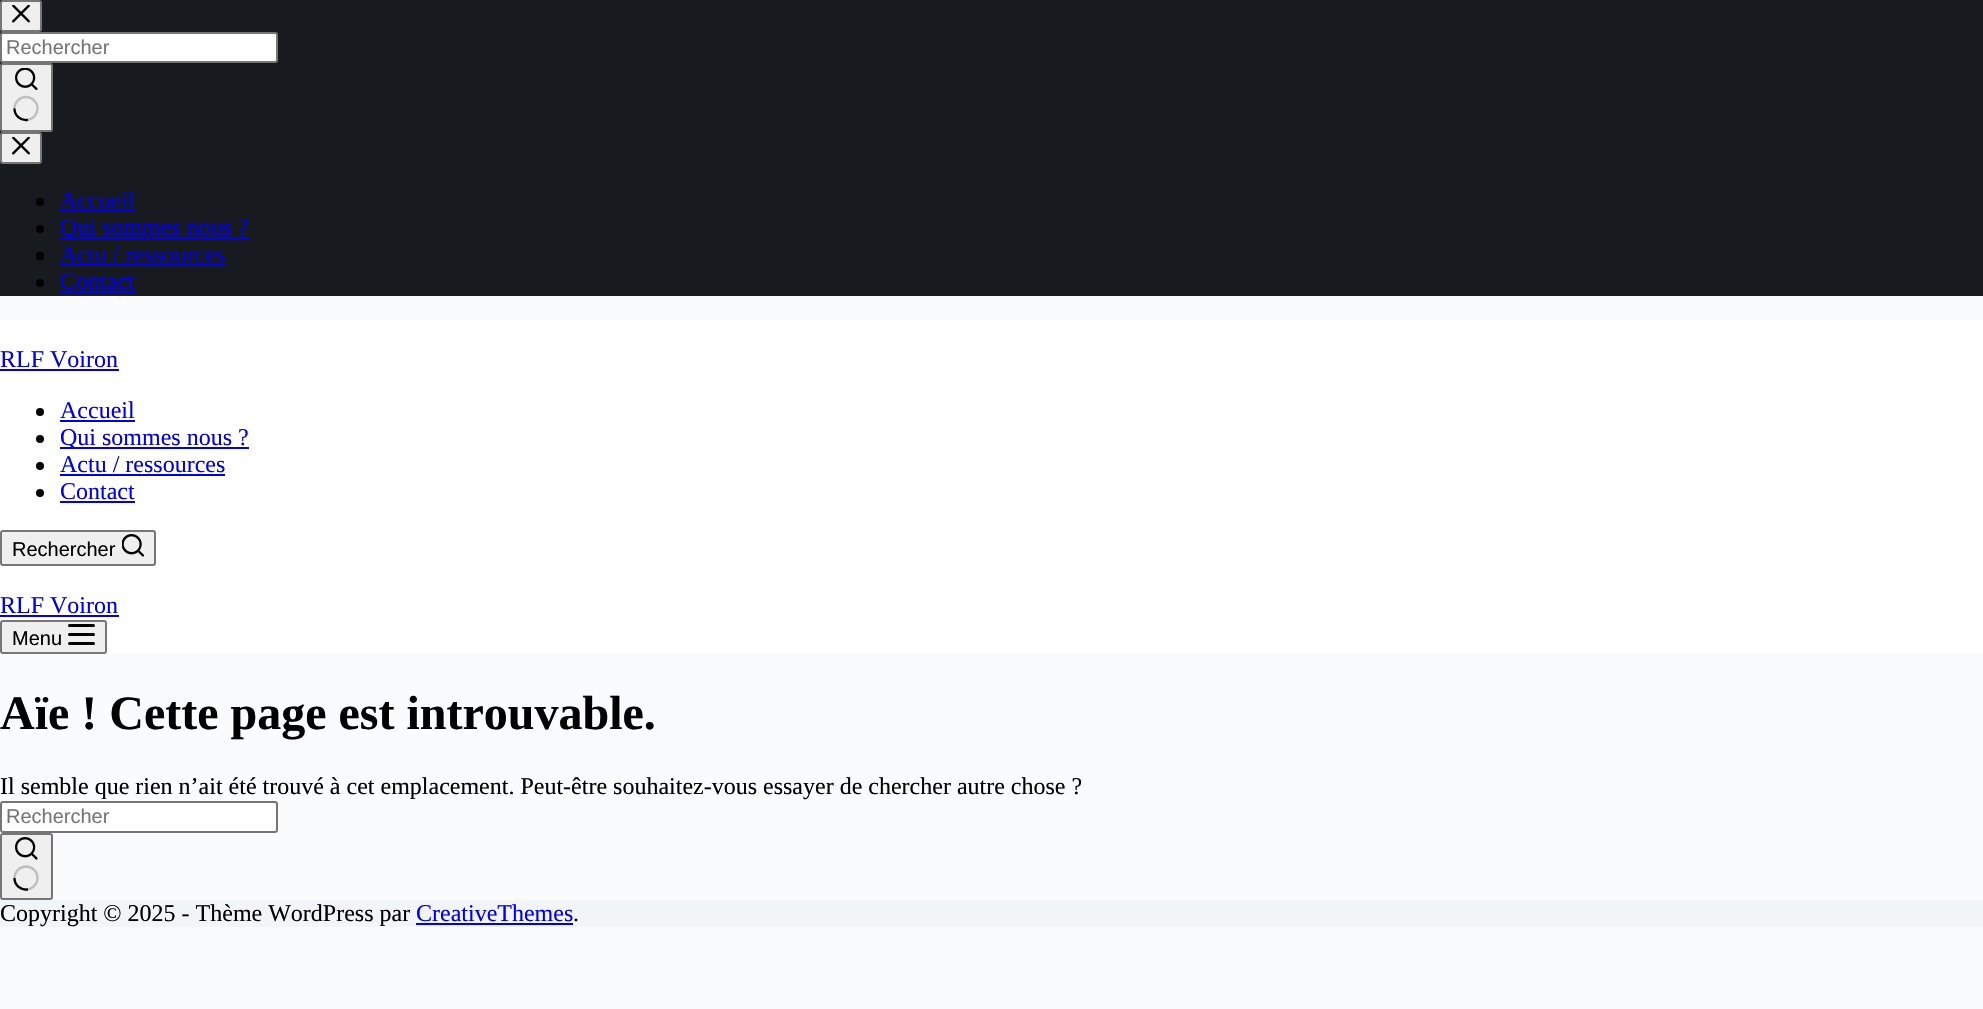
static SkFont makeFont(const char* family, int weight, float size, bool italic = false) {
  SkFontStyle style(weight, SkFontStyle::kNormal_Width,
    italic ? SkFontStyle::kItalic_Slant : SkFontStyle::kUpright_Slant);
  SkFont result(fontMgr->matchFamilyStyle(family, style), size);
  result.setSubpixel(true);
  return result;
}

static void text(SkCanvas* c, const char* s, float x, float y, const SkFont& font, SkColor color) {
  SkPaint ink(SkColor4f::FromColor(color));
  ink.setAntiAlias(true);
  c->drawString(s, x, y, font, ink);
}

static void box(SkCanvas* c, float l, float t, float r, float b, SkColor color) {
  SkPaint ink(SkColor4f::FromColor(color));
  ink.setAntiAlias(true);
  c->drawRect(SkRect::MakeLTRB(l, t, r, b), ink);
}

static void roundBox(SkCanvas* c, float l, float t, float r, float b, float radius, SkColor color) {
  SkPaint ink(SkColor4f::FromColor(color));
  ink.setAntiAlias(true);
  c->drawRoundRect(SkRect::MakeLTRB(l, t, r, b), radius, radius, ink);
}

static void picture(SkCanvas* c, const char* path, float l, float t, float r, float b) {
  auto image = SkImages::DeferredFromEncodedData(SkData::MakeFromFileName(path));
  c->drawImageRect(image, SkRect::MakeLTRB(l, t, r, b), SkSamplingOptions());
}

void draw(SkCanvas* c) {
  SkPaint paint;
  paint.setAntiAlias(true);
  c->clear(0xfffafbfc);
  box(c, 0, 0, 1983, 296, 0xff171a1e);
  paint.setColor(0xffefefef);
  c->drawRoundRect(SkRect::MakeLTRB(1, 1, 41, 31), 2, 2, paint);
  paint.setStyle(SkPaint::kStroke_Style);
  paint.setStrokeWidth(2);
  paint.setColor(0xff767676);
  c->drawRoundRect(SkRect::MakeLTRB(1, 1, 41, 31), 2, 2, paint);
  picture(c, "img_01.png", 12, 5, 30, 23);
  paint.setStyle(SkPaint::kFill_Style);
  paint.setColor(0xffffffff);
  c->drawRoundRect(SkRect::MakeLTRB(1, 33, 277, 62), 2, 2, paint);
  paint.setStyle(SkPaint::kStroke_Style);
  paint.setColor(0xff767676);
  c->drawRoundRect(SkRect::MakeLTRB(1, 33, 277, 62), 2, 2, paint);
  SkFont face1 = makeFont("Liberation Sans", 400, 20);
  text(c, "Rechercher", 6, 54, face1, 0xff757575);
  paint.setStyle(SkPaint::kFill_Style);
  paint.setColor(0xffefefef);
  c->drawRoundRect(SkRect::MakeLTRB(1, 64, 52, 131), 2, 2, paint);
  paint.setStyle(SkPaint::kStroke_Style);
  paint.setColor(0xff767676);
  c->drawRoundRect(SkRect::MakeLTRB(1, 64, 52, 131), 2, 2, paint);
  picture(c, "img_02.png", 15, 68, 38, 90);
  paint.setStrokeWidth(2.3f);
  paint.setColor(0xffbfbfbf);
  c->drawCircle(26, 108.5f, 11.5f, paint);
  paint.setStrokeCap(SkPaint::kRound_Cap);
  paint.setColor(0xff000000);
  c->drawPath(SkPathBuilder().moveTo(27, 120).cubicTo(20.5f, 120.5f, 15, 116, 14.5f, 109.5f).detach(), paint);
  paint.setStyle(SkPaint::kFill_Style);
  paint.setColor(0xffefefef);
  c->drawRoundRect(SkRect::MakeLTRB(1, 133, 41, 163), 2, 2, paint);
  paint.setStyle(SkPaint::kStroke_Style);
  paint.setStrokeWidth(2);
  paint.setStrokeCap(SkPaint::kButt_Cap);
  paint.setColor(0xff767676);
  c->drawRoundRect(SkRect::MakeLTRB(1, 133, 41, 163), 2, 2, paint);
  picture(c, "img_01.png", 12, 137, 30, 155);
  paint.setStyle(SkPaint::kFill_Style);
  paint.setColor(0xff000000);
  c->drawCircle(40, 202, 4, paint);
  SkFont face2 = makeFont("Liberation Serif", 400, 24);
  text(c, "Accueil", 60, 208, face2, 0xff0000ee);
  box(c, 60, 210, 135, 212, 0xff0000ee);
  c->drawCircle(40, 229, 4, paint);
  box(c, 60, 237, 249, 239, 0xff0000ee);
  text(c, "Qui sommes nous ?", 60, 235, face2, 0xff0000ee);
  c->drawCircle(40, 256, 4, paint);
  text(c, "Actu / ressources", 60, 262, face2, 0xff0000ee);
  box(c, 60, 264, 225, 266, 0xff0000ee);
  c->drawCircle(40, 283, 4, paint);
  text(c, "Contact", 60, 289, face2, 0xff0000ee);
  box(c, 60, 291, 135, 293, 0xff0000ee);
  box(c, 0, 320, 1983, 654, 0xffffffff);
  text(c, "RLF Voiron", 0, 367, face2, 0xff0000ee);
  box(c, 0, 369, 119, 371, 0xff0000ee);
  c->drawCircle(40, 412, 4, paint);
  text(c, "Accueil", 60, 418, face2, 0xff0000ee);
  box(c, 60, 420, 135, 422, 0xff0000ee);
  c->drawCircle(40, 439, 4, paint);
  box(c, 60, 447, 249, 449, 0xff0000ee);
  text(c, "Qui sommes nous ?", 60, 445, face2, 0xff0000ee);
  c->drawCircle(40, 466, 4, paint);
  text(c, "Actu / ressources", 60, 472, face2, 0xff0000ee);
  box(c, 60, 474, 225, 476, 0xff0000ee);
  c->drawCircle(40, 493, 4, paint);
  text(c, "Contact", 60, 499, face2, 0xff0000ee);
  box(c, 60, 501, 135, 503, 0xff0000ee);
  paint.setColor(0xffefefef);
  c->drawRoundRect(SkRect::MakeLTRB(1, 531, 155, 565), 2, 2, paint);
  paint.setStyle(SkPaint::kStroke_Style);
  paint.setColor(0xff767676);
  c->drawRoundRect(SkRect::MakeLTRB(1, 531, 155, 565), 2, 2, paint);
  text(c, "Rechercher", 12, 556, face1, 0xff000000);
  picture(c, "img_03.png", 122, 534, 144, 557);
  text(c, "RLF Voiron", 0, 613, face2, 0xff0000ee);
  box(c, 0, 615, 119, 617, 0xff0000ee);
  paint.setStyle(SkPaint::kFill_Style);
  paint.setColor(0xffefefef);
  c->drawRoundRect(SkRect::MakeLTRB(1, 621, 106, 653), 2, 2, paint);
  paint.setStyle(SkPaint::kStroke_Style);
  paint.setColor(0xff767676);
  c->drawRoundRect(SkRect::MakeLTRB(1, 621, 106, 653), 2, 2, paint);
  roundBox(c, 68, 624, 95, 627, 1.5f, 0xff000000);
  text(c, "Menu", 12, 645, face1, 0xff000000);
  roundBox(c, 68, 633, 95, 636, 1.5f, 0xff000000);
  roundBox(c, 68, 642, 95, 645, 1.5f, 0xff000000);
  SkFont face3 = makeFont("Liberation Serif", 700, 48);
  text(c, "Aïe ! Cette page est introuvable.", 0, 729, face3, 0xff000000);
  text(c, "Il semble que rien n’ait été trouvé à cet emplacement. Peut-être souhaitez-vous essayer de chercher autre chose ?", 0, 794, face2, 0xff000000);
  paint.setStyle(SkPaint::kFill_Style);
  paint.setColor(0xffffffff);
  c->drawRoundRect(SkRect::MakeLTRB(1, 802, 277, 832), 2, 2, paint);
  paint.setStyle(SkPaint::kStroke_Style);
  paint.setColor(0xff767676);
  c->drawRoundRect(SkRect::MakeLTRB(1, 802, 277, 832), 2, 2, paint);
  text(c, "Rechercher", 6, 823, face1, 0xff757575);
  paint.setStyle(SkPaint::kFill_Style);
  paint.setColor(0xffefefef);
  c->drawRoundRect(SkRect::MakeLTRB(1, 834, 52, 899), 2, 2, paint);
  paint.setStyle(SkPaint::kStroke_Style);
  paint.setColor(0xff767676);
  c->drawRoundRect(SkRect::MakeLTRB(1, 834, 52, 899), 2, 2, paint);
  picture(c, "img_04.png", 15, 837, 38, 860);
  paint.setStrokeWidth(2.3f);
  paint.setColor(0xffbfbfbf);
  c->drawCircle(26, 878, 11.5f, paint);
  paint.setStrokeCap(SkPaint::kRound_Cap);
  paint.setColor(0xff000000);
  c->drawPath(SkPathBuilder().moveTo(27, 889.5f).cubicTo(20.5f, 890, 15, 885.5f, 14.5f, 879).detach(), paint);
  box(c, 0, 900, 1983, 927, 0xfff2f5f7);
  text(c, "Copyright © 2025 - Thème WordPress par", 0, 921, face2, 0xff000000);
  text(c, "CreativeThemes", 416, 921, face2, 0xff0000ee);
  box(c, 416, 923, 573, 925, 0xff0000ee);
  text(c, ".", 573, 921, face2, 0xff000000);
}
